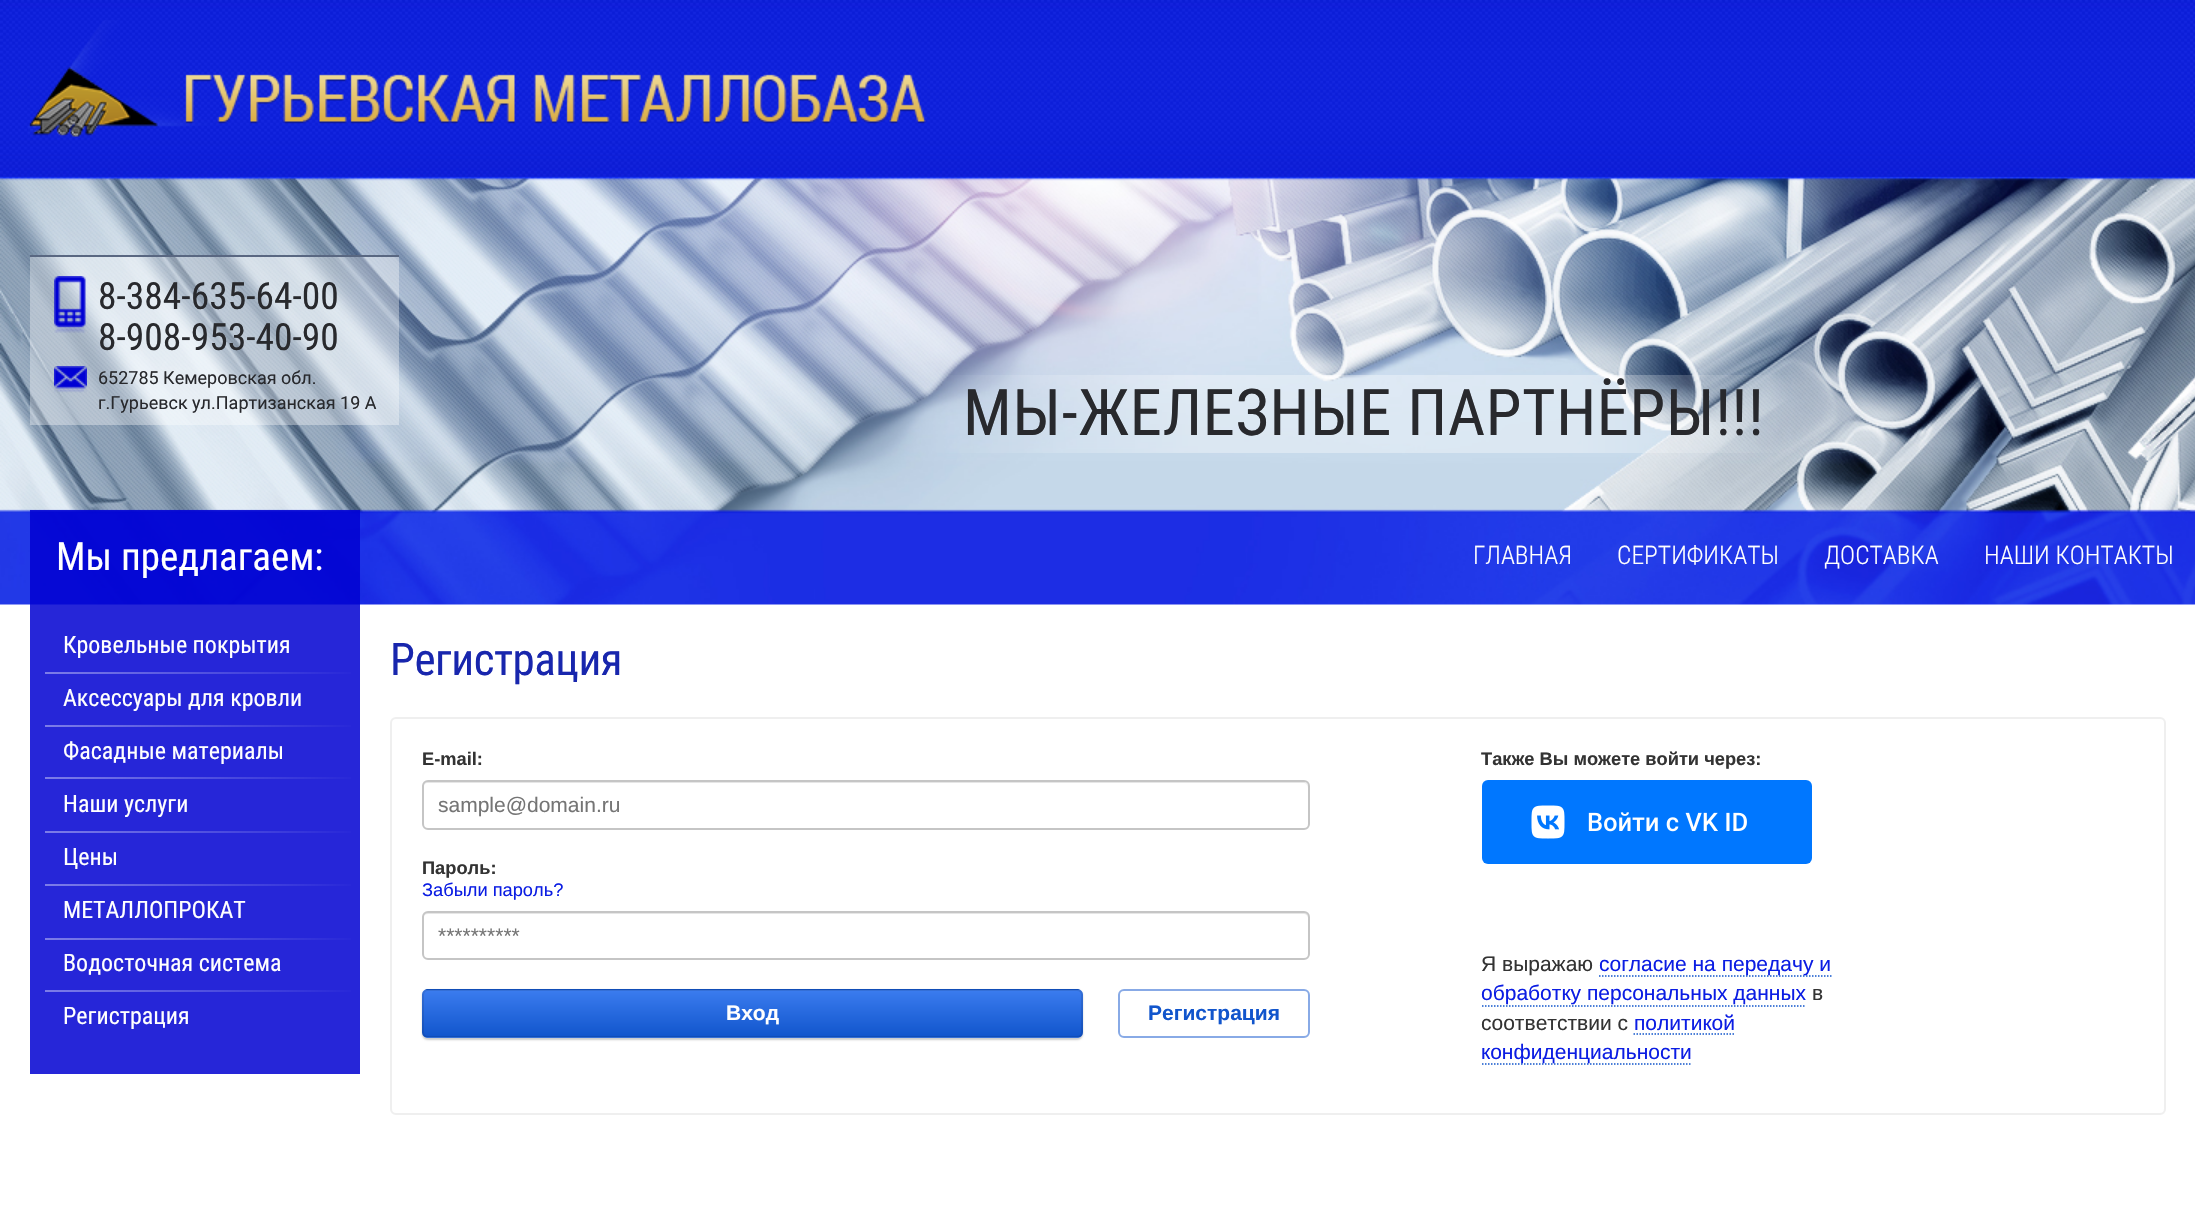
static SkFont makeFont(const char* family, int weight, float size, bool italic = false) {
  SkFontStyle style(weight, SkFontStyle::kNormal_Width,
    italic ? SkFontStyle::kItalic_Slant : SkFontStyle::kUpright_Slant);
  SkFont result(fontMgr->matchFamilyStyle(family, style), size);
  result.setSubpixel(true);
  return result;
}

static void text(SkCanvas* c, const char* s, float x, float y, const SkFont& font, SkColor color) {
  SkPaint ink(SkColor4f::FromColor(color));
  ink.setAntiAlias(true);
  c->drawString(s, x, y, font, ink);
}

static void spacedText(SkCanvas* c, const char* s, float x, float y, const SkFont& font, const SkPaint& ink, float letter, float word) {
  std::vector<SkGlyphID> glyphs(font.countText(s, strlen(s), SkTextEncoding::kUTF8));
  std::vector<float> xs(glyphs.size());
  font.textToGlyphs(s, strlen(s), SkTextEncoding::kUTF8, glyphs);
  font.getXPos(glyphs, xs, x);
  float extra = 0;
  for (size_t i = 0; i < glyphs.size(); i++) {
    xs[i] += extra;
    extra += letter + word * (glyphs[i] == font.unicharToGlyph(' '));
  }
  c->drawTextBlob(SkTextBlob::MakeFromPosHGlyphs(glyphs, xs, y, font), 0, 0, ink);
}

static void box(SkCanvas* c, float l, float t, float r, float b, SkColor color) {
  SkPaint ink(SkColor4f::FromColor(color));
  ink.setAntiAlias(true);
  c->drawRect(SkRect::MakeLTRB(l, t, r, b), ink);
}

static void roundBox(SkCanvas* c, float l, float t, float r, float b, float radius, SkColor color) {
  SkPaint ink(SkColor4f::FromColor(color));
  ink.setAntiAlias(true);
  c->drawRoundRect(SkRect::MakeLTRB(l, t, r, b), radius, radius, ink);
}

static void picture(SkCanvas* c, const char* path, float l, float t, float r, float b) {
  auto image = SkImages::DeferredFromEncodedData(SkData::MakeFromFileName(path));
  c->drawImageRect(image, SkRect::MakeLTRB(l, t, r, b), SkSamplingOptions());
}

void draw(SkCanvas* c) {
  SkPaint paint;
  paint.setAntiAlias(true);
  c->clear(0xffffffff);
  picture(c, "img_01.png", 0, 0, 2195, 605);
  picture(c, "img_02.png", 28, 20, 926, 137);
  box(c, 30, 257, 399, 425, 0x59ffffff);
  box(c, 30, 255, 399, 257, 0xff596781);
  picture(c, "img_03.png", 54, 276, 86, 333);
  SkFont face1 = makeFont("Roboto Condensed", 400, 37.5f);
  text(c, "8-384-635-64-00", 98, 309, face1, 0xff28292d);
  text(c, "8-908-953-40-90", 98, 350, face1, 0xff28292d);
  picture(c, "img_04.png", 54, 366, 87, 393);
  SkFont face2 = makeFont("Roboto", 400, 18);
  text(c, "652785 Кемеровская обл.", 98, 384, face2, 0xff28292d);
  text(c, "г.Гурьевск ул.Партизанская 19 А", 98, 409, face2, 0xff28292d);
  SkFont face3 = makeFont("Roboto Condensed", 400, 64.5f);
  paint.setColor(0xff28292d);
  spacedText(c, "МЫ-ЖЕЛЕЗНЫЕ ПАРТНЁРЫ!!!", 963, 435, face3, paint, 0.6f, 0);
  box(c, 30, 510, 360, 1074, 0xd90000d1);
  SkFont face4 = makeFont("Roboto Condensed", 400, 39);
  text(c, "Мы предлагаем:", 56, 570, face4, 0xffffffff);
  SkFont face5 = makeFont("Roboto Condensed", 400, 24);
  text(c, "Кровельные покрытия", 63, 653, face5, 0xffffffff);
  {
    const SkColor colors[] = {0xff7d7de8, 0xff2626d8};
    const float stops[] = {0, 1};
    const SkPoint ends[] = {{45, 673}, {360, 673}};
    paint.setShader(SkGradientShader::MakeLinear(ends, colors, stops, 2, SkTileMode::kClamp));
    paint.setAlpha(255);
  }
  c->drawRect(SkRect::MakeLTRB(45, 672, 351, 674), paint);
  text(c, "Аксессуары для кровли", 63, 706, face5, 0xffffffff);
  {
    const SkColor colors[] = {0xff7d7de8, 0xff2626d8};
    const float stops[] = {0, 1};
    const SkPoint ends[] = {{45, 725}, {360, 725}};
    paint.setShader(SkGradientShader::MakeLinear(ends, colors, stops, 2, SkTileMode::kClamp));
    paint.setAlpha(255);
  }
  c->drawRect(SkRect::MakeLTRB(45, 725, 351, 727), paint);
  text(c, "Фасадные материалы", 63, 759, face5, 0xffffffff);
  {
    const SkColor colors[] = {0xff7d7de8, 0xff2626d8};
    const float stops[] = {0, 1};
    const SkPoint ends[] = {{45, 778}, {360, 778}};
    paint.setShader(SkGradientShader::MakeLinear(ends, colors, stops, 2, SkTileMode::kClamp));
    paint.setAlpha(255);
  }
  c->drawRect(SkRect::MakeLTRB(45, 777, 351, 779), paint);
  text(c, "Наши услуги", 63, 812, face5, 0xffffffff);
  {
    const SkColor colors[] = {0xff7d7de8, 0xff2626d8};
    const float stops[] = {0, 1};
    const SkPoint ends[] = {{45, 832}, {360, 832}};
    paint.setShader(SkGradientShader::MakeLinear(ends, colors, stops, 2, SkTileMode::kClamp));
    paint.setAlpha(255);
  }
  c->drawRect(SkRect::MakeLTRB(45, 831, 351, 833), paint);
  text(c, "Цены", 63, 865, face5, 0xffffffff);
  {
    const SkColor colors[] = {0xff7d7de8, 0xff2626d8};
    const float stops[] = {0, 1};
    const SkPoint ends[] = {{45, 884}, {360, 884}};
    paint.setShader(SkGradientShader::MakeLinear(ends, colors, stops, 2, SkTileMode::kClamp));
    paint.setAlpha(255);
  }
  c->drawRect(SkRect::MakeLTRB(45, 884, 351, 886), paint);
  text(c, "МЕТАЛЛОПРОКАТ", 63, 918, face5, 0xffffffff);
  {
    const SkColor colors[] = {0xff7d7de8, 0xff2626d8};
    const float stops[] = {0, 1};
    const SkPoint ends[] = {{45, 938}, {360, 938}};
    paint.setShader(SkGradientShader::MakeLinear(ends, colors, stops, 2, SkTileMode::kClamp));
    paint.setAlpha(255);
  }
  c->drawRect(SkRect::MakeLTRB(45, 938, 351, 940), paint);
  text(c, "Водосточная система", 63, 971, face5, 0xffffffff);
  {
    const SkColor colors[] = {0xff7d7de8, 0xff2626d8};
    const float stops[] = {0, 1};
    const SkPoint ends[] = {{45, 991}, {360, 991}};
    paint.setShader(SkGradientShader::MakeLinear(ends, colors, stops, 2, SkTileMode::kClamp));
    paint.setAlpha(255);
  }
  c->drawRect(SkRect::MakeLTRB(45, 990, 351, 992), paint);
  text(c, "Регистрация", 63, 1024, face5, 0xffffffff);
  SkFont face6 = makeFont("Roboto Condensed", 300, 25.5f);
  text(c, "ГЛАВНАЯ", 1473, 564, face6, 0xffffffff);
  text(c, "СЕРТИФИКАТЫ", 1617, 564, face6, 0xffffffff);
  text(c, "ДОСТАВКА", 1824, 564, face6, 0xffffffff);
  text(c, "НАШИ КОНТАКТЫ", 1984, 564, face6, 0xffffffff);
  SkFont face7 = makeFont("Roboto Condensed", 400, 45);
  paint.setShader(nullptr);
  paint.setColor(0xff1826ad);
  spacedText(c, "Регистрация", 390, 675, face7, paint, -0.5f, 0);
  paint.setStyle(SkPaint::kStroke_Style);
  paint.setStrokeWidth(2);
  paint.setColor(0xffefefef);
  c->drawRoundRect(SkRect::MakeLTRB(391, 718, 2165, 1114), 5, 5, paint);
  SkFont face8 = makeFont("Liberation Sans", 700, 18.25f);
  text(c, "E-mail:", 422, 765, face8, 0xff333333);
  paint.setStyle(SkPaint::kFill_Style);
  paint.setColor(0xffe6e6e6);
  c->drawPath(SkPathBuilder().moveTo(428, 783).lineTo(1304, 783).cubicTo(1306, 783, 1308, 785, 1308, 788).lineTo(1308, 787).cubicTo(1308, 784, 1306, 782, 1303, 782).lineTo(428, 782).cubicTo(425, 782, 423, 784, 423, 787).lineTo(423, 788).cubicTo(423, 785, 425, 783, 428, 783).close().detach(), paint);
  paint.setStyle(SkPaint::kStroke_Style);
  paint.setColor(0xffc5c5c5);
  c->drawRoundRect(SkRect::MakeLTRB(423, 781, 1309, 829), 5, 5, paint);
  SkFont face9 = makeFont("Liberation Sans", 400, 21);
  text(c, "sample@domain.ru", 438, 812, face9, 0xff757575);
  text(c, "Пароль:", 422, 874, face8, 0xff333333);
  SkFont face10 = makeFont("Liberation Sans", 400, 18.25f);
  text(c, "Забыли пароль?", 422, 896, face10, 0xff0b1de3);
  paint.setStyle(SkPaint::kFill_Style);
  paint.setColor(0xffe6e6e6);
  c->drawPath(SkPathBuilder().moveTo(428, 914).lineTo(1304, 914).cubicTo(1306, 914, 1308, 916, 1308, 918).lineTo(1308, 917).cubicTo(1308, 914, 1306, 912, 1303, 912).lineTo(428, 912).cubicTo(425, 912, 423, 914, 423, 917).lineTo(423, 918).cubicTo(423, 916, 425, 914, 428, 914).close().detach(), paint);
  paint.setStyle(SkPaint::kStroke_Style);
  paint.setColor(0xffc5c5c5);
  c->drawRoundRect(SkRect::MakeLTRB(423, 912, 1309, 959), 5, 5, paint);
  text(c, "**********", 438, 943, face9, 0xff757575);
  paint.setStyle(SkPaint::kFill_Style);
  paint.setColor(0x33000000);
  paint.setMaskFilter(SkMaskFilter::MakeBlur(kNormal_SkBlurStyle, 1));
  c->drawRoundRect(SkRect::MakeLTRB(422, 990, 1083, 1040), 6, 6, paint);
  paint.setMaskFilter(nullptr);
  c->save();
  c->clipPath(SkPathBuilder().moveTo(428, 989).lineTo(1077, 989).cubicTo(1080.5f, 989, 1083, 991.5f, 1083, 995).lineTo(1083, 1032).cubicTo(1083, 1035.5f, 1080.5f, 1038, 1077, 1038).lineTo(428, 1038).cubicTo(424.5f, 1038, 422, 1035.5f, 422, 1032).lineTo(422, 995).cubicTo(422, 991.5f, 424.5f, 989, 428, 989).close().detach(), true);
  {
    const SkColor colors[] = {0xff3b7cef, 0xff1155cc};
    const float stops[] = {0, 1};
    const SkPoint ends[] = {{752, 944}, {752, 990}};
    paint.setShader(SkGradientShader::MakeLinear(ends, colors, stops, 2, SkTileMode::kClamp));
    paint.setAlpha(255);
  }
  c->drawRect(SkRect::MakeLTRB(422, 989, 1083, 990), paint);
  {
    const SkColor colors[] = {0xff3b7cef, 0xff1155cc};
    const float stops[] = {0, 1};
    const SkPoint ends[] = {{752, 990}, {752, 1037}};
    paint.setShader(SkGradientShader::MakeLinear(ends, colors, stops, 2, SkTileMode::kClamp));
    paint.setAlpha(255);
  }
  c->drawRect(SkRect::MakeLTRB(422, 990, 1083, 1037), paint);
  {
    const SkColor colors[] = {0xff3b7cef, 0xff1155cc};
    const float stops[] = {0, 1};
    const SkPoint ends[] = {{752, 1037}, {752, 1083}};
    paint.setShader(SkGradientShader::MakeLinear(ends, colors, stops, 2, SkTileMode::kClamp));
    paint.setAlpha(255);
  }
  c->drawRect(SkRect::MakeLTRB(422, 1037, 1083, 1038), paint);
  c->restore();
  paint.setStyle(SkPaint::kStroke_Style);
  paint.setShader(nullptr);
  paint.setColor(0x1a000000);
  c->drawRoundRect(SkRect::MakeLTRB(423, 990, 1082, 1037), 5, 5, paint);
  SkFont face11 = makeFont("Liberation Sans", 700, 21);
  text(c, "Вход", 726, 1020, face11, 0xffffffff);
  paint.setColor(0xff88aae6);
  c->drawRoundRect(SkRect::MakeLTRB(1119, 990, 1309, 1037), 5, 5, paint);
  text(c, "Регистрация", 1148, 1020, face11, 0xff1155cc);
  text(c, "Также Вы можете войти через:", 1481, 765, face8, 0xff333333);
  roundBox(c, 1482, 780, 1812, 864, 6, 0xff0077ff);
  picture(c, "img_05.png", 1531, 805, 1747, 839);
  text(c, "Я выражаю", 1481, 971, face9, 0xff333333);
  paint.setStrokeWidth(1.5f);
  paint.setColor(0xff1155cc);
  paint.setPathEffect(SkDashPathEffect::Make({{1.5f, 1.5f}}, 0));
  c->drawPath(SkPathBuilder().moveTo(1599, 976).lineTo(1831.5f, 976).detach(), paint);
  paint.setPathEffect(nullptr);
  text(c, "согласие на передачу и", 1599, 971, face9, 0xff0b1de3);
  text(c, "обработку персональных данных", 1481, 1000, face9, 0xff0b1de3);
  paint.setPathEffect(SkDashPathEffect::Make({{1.5f, 1.5f}}, 0));
  c->drawPath(SkPathBuilder().moveTo(1482, 1006).lineTo(1806, 1006).detach(), paint);
  paint.setPathEffect(nullptr);
  text(c, "в", 1812, 1000, face9, 0xff333333);
  text(c, "соответствии с", 1481, 1030, face9, 0xff333333);
  text(c, "политикой", 1634, 1030, face9, 0xff0b1de3);
  paint.setPathEffect(SkDashPathEffect::Make({{1.5f, 1.5f}}, 0));
  c->drawPath(SkPathBuilder().moveTo(1633.5f, 1034).lineTo(1735.5f, 1034).detach(), paint);
  paint.setPathEffect(nullptr);
  paint.setPathEffect(SkDashPathEffect::Make({{1.5f, 1.5f}}, 0));
  c->drawPath(SkPathBuilder().moveTo(1482, 1064).lineTo(1692, 1064).detach(), paint);
  paint.setPathEffect(nullptr);
  text(c, "конфиденциальности", 1481, 1059, face9, 0xff0b1de3);
}
